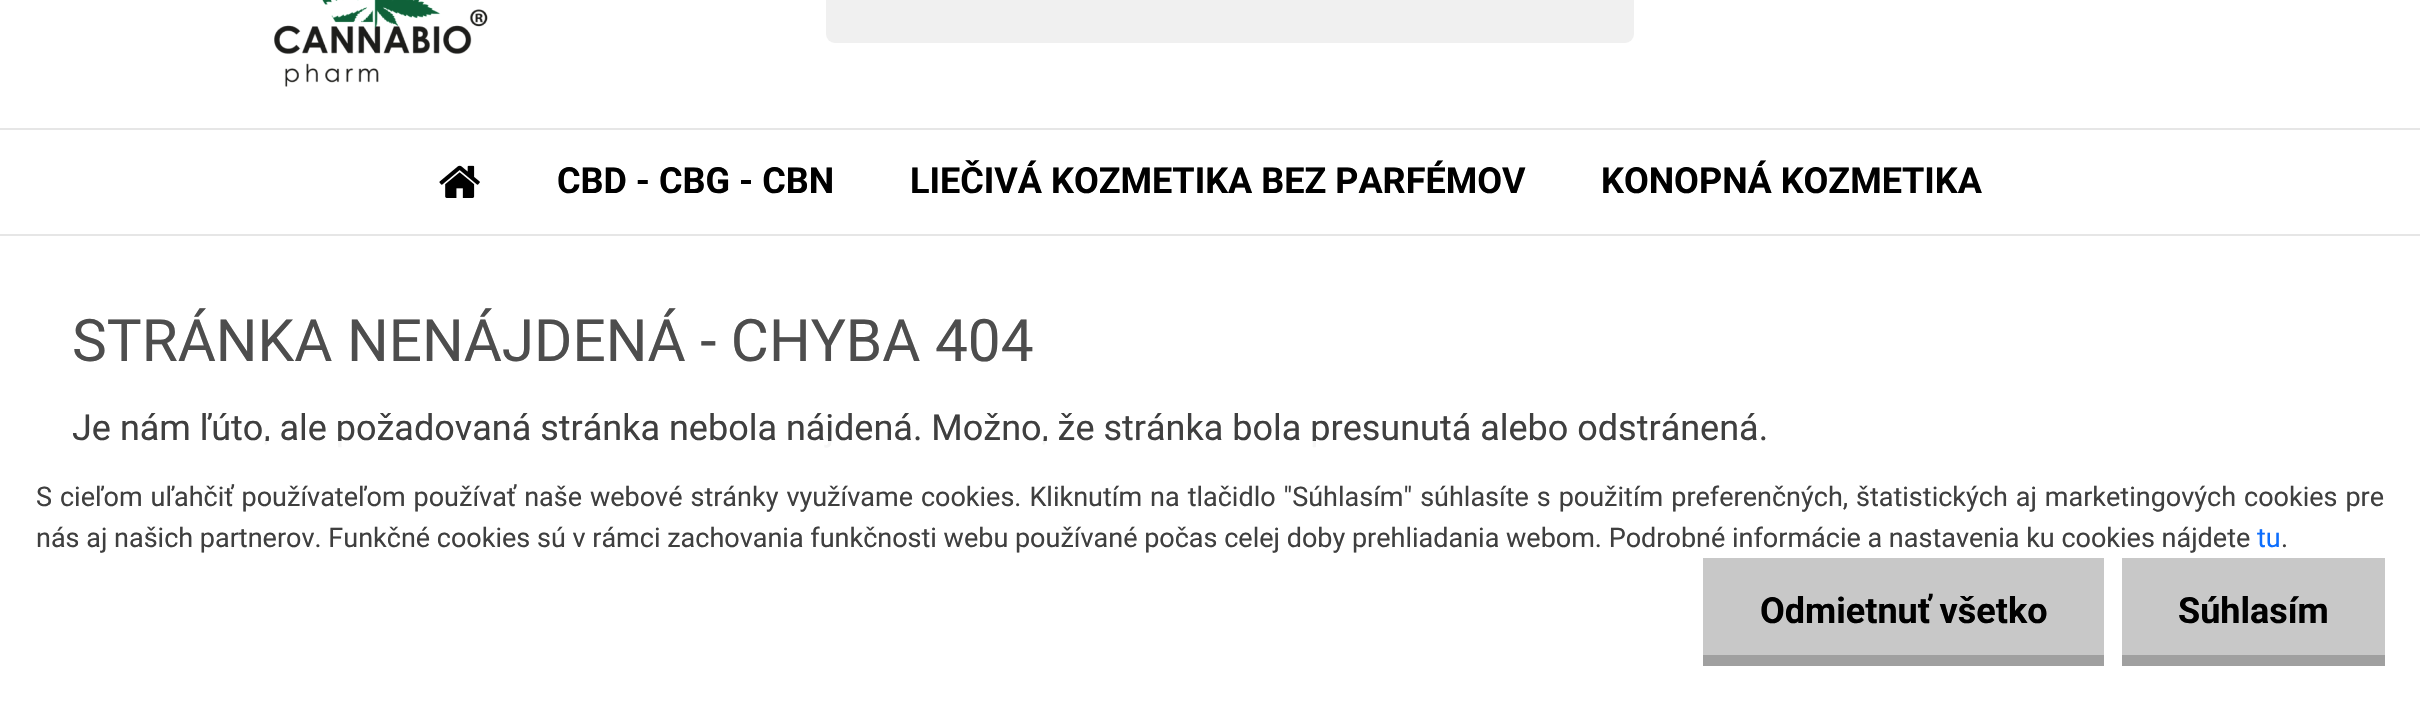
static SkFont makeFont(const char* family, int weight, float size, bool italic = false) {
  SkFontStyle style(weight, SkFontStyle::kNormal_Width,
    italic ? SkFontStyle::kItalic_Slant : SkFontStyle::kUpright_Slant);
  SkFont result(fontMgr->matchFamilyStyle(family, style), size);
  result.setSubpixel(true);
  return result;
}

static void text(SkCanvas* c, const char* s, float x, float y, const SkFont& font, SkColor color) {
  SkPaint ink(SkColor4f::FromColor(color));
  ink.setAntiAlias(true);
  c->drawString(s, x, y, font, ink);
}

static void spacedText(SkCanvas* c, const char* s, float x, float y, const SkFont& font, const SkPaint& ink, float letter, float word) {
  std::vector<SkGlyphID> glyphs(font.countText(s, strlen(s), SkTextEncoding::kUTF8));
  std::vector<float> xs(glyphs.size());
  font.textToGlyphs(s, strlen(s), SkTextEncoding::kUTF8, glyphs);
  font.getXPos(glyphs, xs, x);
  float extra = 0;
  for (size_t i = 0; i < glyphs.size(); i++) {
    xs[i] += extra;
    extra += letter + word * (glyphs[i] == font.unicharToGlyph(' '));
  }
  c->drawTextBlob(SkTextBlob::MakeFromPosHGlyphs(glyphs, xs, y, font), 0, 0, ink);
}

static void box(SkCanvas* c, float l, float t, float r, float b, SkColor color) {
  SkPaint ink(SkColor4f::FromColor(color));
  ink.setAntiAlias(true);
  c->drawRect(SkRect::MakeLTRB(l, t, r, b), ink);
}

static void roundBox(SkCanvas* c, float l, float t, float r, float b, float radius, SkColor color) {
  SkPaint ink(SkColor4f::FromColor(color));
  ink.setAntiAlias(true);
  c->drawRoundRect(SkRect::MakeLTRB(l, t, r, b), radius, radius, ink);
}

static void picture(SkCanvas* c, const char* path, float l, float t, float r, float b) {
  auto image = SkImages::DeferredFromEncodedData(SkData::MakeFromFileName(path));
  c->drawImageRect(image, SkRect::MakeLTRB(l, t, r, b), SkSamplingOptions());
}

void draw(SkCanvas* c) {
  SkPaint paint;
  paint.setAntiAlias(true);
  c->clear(0xffffffff);
  box(c, 0, 128, 2420, 130, 0xffe6e6e6);
  picture(c, "img_01.png", 274, 0, 488, 87);
  roundBox(c, 826, -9, 1634, 43, 9, 0xfff0f0f0);
  box(c, 0, 234, 2420, 236, 0xffe6e6e6);
  picture(c, "img_02.png", 439, 165, 480, 198);
  SkFont face1 = makeFont("Roboto", 700, 36);
  text(c, "CBD - CBG - CBN", 557, 193, face1, 0xff000000);
  text(c, "LIEČIVÁ KOZMETIKA BEZ PARFÉMOV", 910, 193, face1, 0xff000000);
  text(c, "KONOPNÁ KOZMETIKA", 1601, 193, face1, 0xff000000);
  SkFont face2 = makeFont("Roboto", 400, 58.5f);
  text(c, "STRÁNKA NENÁJDENÁ - CHYBA 404", 72, 361, face2, 0xff4d4d4d);
  SkFont face3 = makeFont("Roboto", 400, 36);
  text(c, "Je nám ľúto, ale požadovaná stránka nebola nájdená. Možno, že stránka bola presunutá alebo odstránená.", 72, 440, face3, 0xff3f3f3f);
  box(c, 264, 441, 1316, 448, 0xf2ffffff);
  SkFont face4 = makeFont("Roboto", 400, 27);
  paint.setColor(0xff3f3f3f);
  spacedText(c, "S cieľom uľahčiť používateľom používať naše webové stránky využívame cookies. Kliknutím na tlačidlo \"Súhlasím\" súhlasíte s použitím preferenčných, štatistických aj marketingových cookies pre", 36, 506, face4, paint, 0, 1.25f);
  text(c, "nás aj našich partnerov. Funkčné cookies sú v rámci zachovania funkčnosti webu používané počas celej doby prehliadania webom. Podrobné informácie a nastavenia ku cookies nájdete", 36, 547, face4, 0xff3f3f3f);
  text(c, "tu", 2257, 547, face4, 0xff0d6efd);
  text(c, ".", 2281, 547, face4, 0xff3f3f3f);
  box(c, 1703, 558, 2104, 655, 0xffc8c8c8);
  box(c, 1703, 655, 2104, 666, 0xffa0a0a0);
  text(c, "Odmietnuť všetko", 1760, 623, face1, 0xff000000);
  box(c, 2122, 558, 2385, 655, 0xffc8c8c8);
  box(c, 2122, 655, 2385, 666, 0xffa0a0a0);
  text(c, "Súhlasím", 2178, 623, face1, 0xff000000);
}
